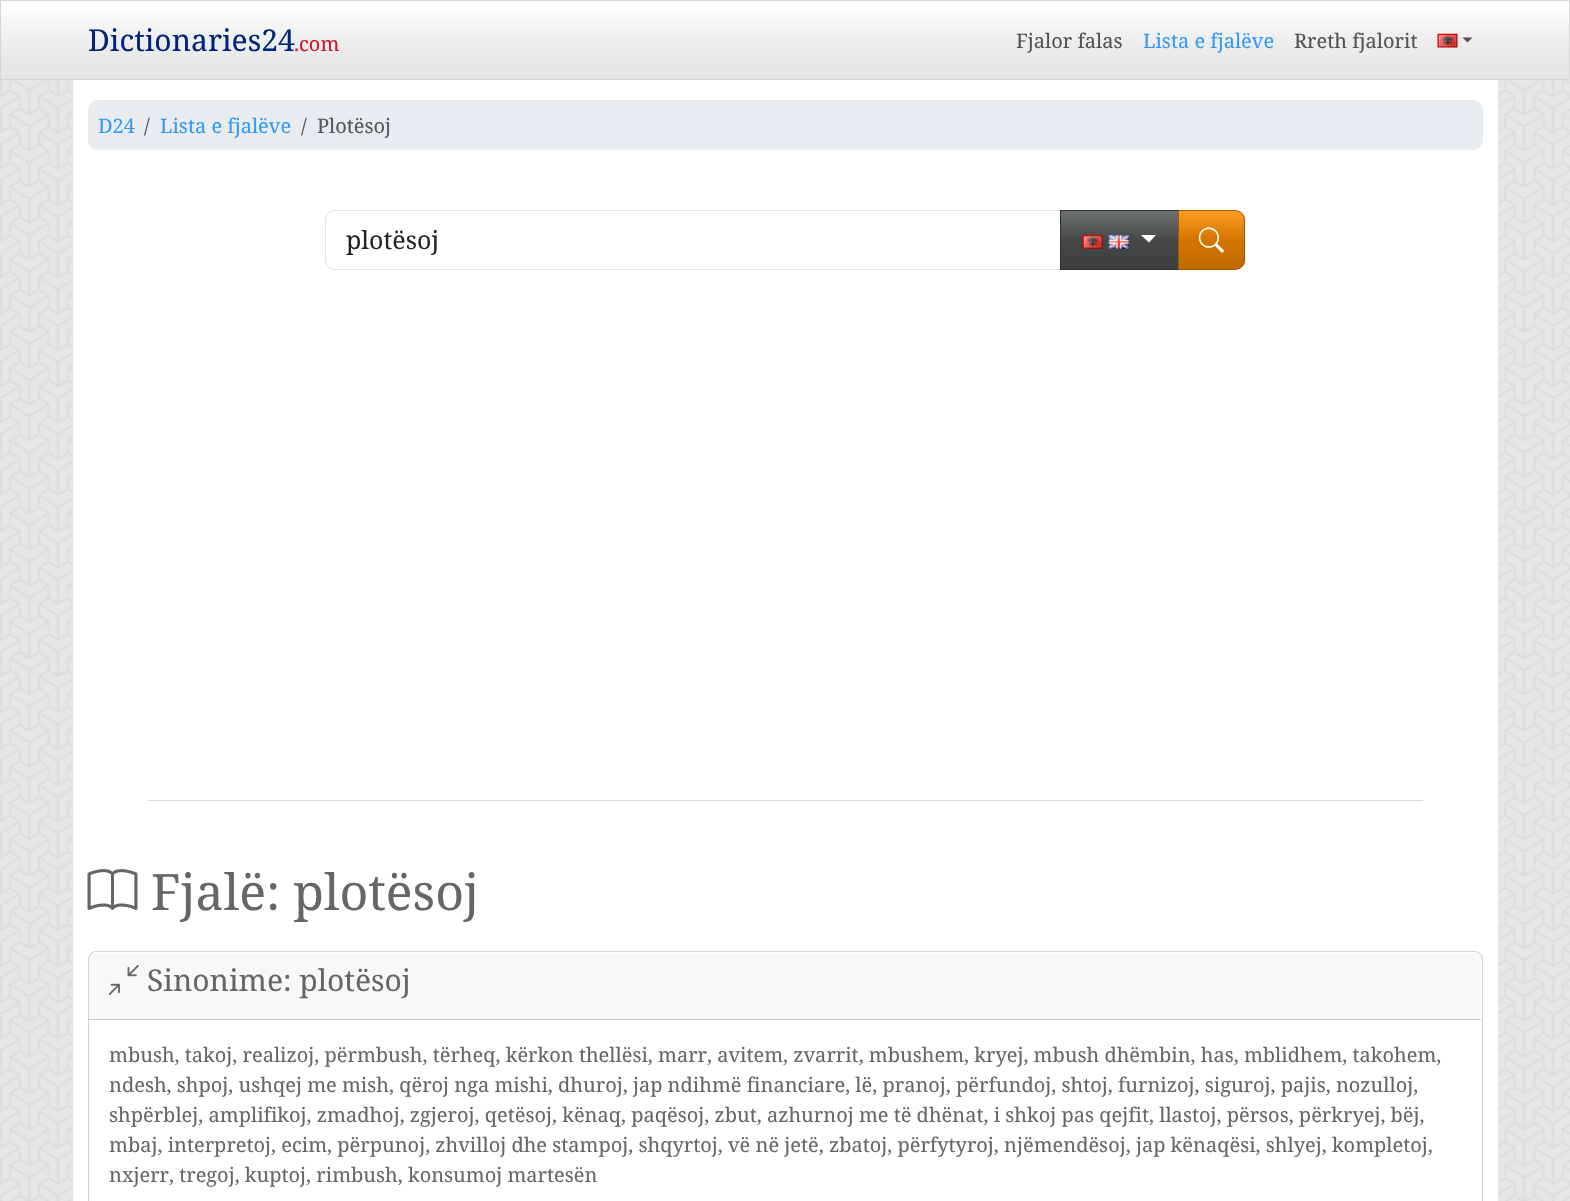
static SkFont makeFont(const char* family, int weight, float size, bool italic = false) {
  SkFontStyle style(weight, SkFontStyle::kNormal_Width,
    italic ? SkFontStyle::kItalic_Slant : SkFontStyle::kUpright_Slant);
  SkFont result(fontMgr->matchFamilyStyle(family, style), size);
  result.setSubpixel(true);
  return result;
}

static void text(SkCanvas* c, const char* s, float x, float y, const SkFont& font, SkColor color) {
  SkPaint ink(SkColor4f::FromColor(color));
  ink.setAntiAlias(true);
  c->drawString(s, x, y, font, ink);
}

static void box(SkCanvas* c, float l, float t, float r, float b, SkColor color) {
  SkPaint ink(SkColor4f::FromColor(color));
  ink.setAntiAlias(true);
  c->drawRect(SkRect::MakeLTRB(l, t, r, b), ink);
}

static void roundBox(SkCanvas* c, float l, float t, float r, float b, float radius, SkColor color) {
  SkPaint ink(SkColor4f::FromColor(color));
  ink.setAntiAlias(true);
  c->drawRoundRect(SkRect::MakeLTRB(l, t, r, b), radius, radius, ink);
}

static void picture(SkCanvas* c, const char* path, float l, float t, float r, float b) {
  auto image = SkImages::DeferredFromEncodedData(SkData::MakeFromFileName(path));
  c->drawImageRect(image, SkRect::MakeLTRB(l, t, r, b), SkSamplingOptions());
}

void draw(SkCanvas* c) {
  SkPaint paint;
  paint.setAntiAlias(true);
  c->clear(0xffffffff);
  picture(c, "img_01.png", 0, 80, 1570, 1201);
  {
    const SkColor colors[] = {0xffffffff, 0xffeeeeee, 0xffe4e4e4};
    const float stops[] = {0, 0.5f, 1};
    const SkPoint ends[] = {{785, 1.2f}, {785, 79}};
    paint.setShader(SkGradientShader::MakeLinear(ends, colors, stops, 3, SkTileMode::kClamp));
    paint.setAlpha(255);
  }
  c->drawRect(SkRect::MakeLTRB(1, 7, 1569, 79), paint);
  paint.setStyle(SkPaint::kStroke_Style);
  paint.setStrokeWidth(1);
  paint.setShader(nullptr);
  paint.setColor(0xffd5d5d5);
  c->drawRect(SkRect::MakeLTRB(0.5f, 0.5f, 1569.5f, 79.5f), paint);
  SkFont face1 = makeFont("Noto Serif", 400, 30);
  text(c, "Dictionaries24", 88, 51, face1, 0xff00247d);
  SkFont face2 = makeFont("Noto Serif", 400, 20);
  text(c, ".com", 294, 51, face2, 0xffcf142b);
  text(c, "Fjalor falas", 1016, 48, face2, 0xff535353);
  text(c, "Lista e fjalëve", 1143, 48, face2, 0xff3399f3);
  text(c, "Rreth fjalorit", 1294, 48, face2, 0xff535353);
  picture(c, "img_02.png", 1437, 33, 1458, 48);
  paint.setStyle(SkPaint::kFill_Style);
  paint.setColor(0xff535353);
  c->drawPath(SkPathBuilder().moveTo(1462.5f, 37.5f).lineTo(1472.5f, 37.5f).lineTo(1467.5f, 42.5f).close().detach(), paint);
  box(c, 73, 80, 1498, 1201, 0xffffffff);
  roundBox(c, 88, 100, 1483, 150, 10, 0xffe9ecef);
  text(c, "D24", 98, 133, face2, 0xff3399f3);
  text(c, "/", 144, 133, face2, 0xff53575b);
  text(c, "Lista e fjalëve", 160, 133, face2, 0xff3399f3);
  text(c, "/", 301, 133, face2, 0xff53575b);
  text(c, "Plotësoj", 317, 133, face2, 0xff53575b);
  paint.setStyle(SkPaint::kStroke_Style);
  paint.setColor(0xffdee2e6);
  c->drawPath(SkPathBuilder().moveTo(335, 210.5f).lineTo(1060.5f, 210.5f).lineTo(1060.5f, 269.5f).lineTo(335, 269.5f).cubicTo(330, 269.5f, 325.5f, 265, 325.5f, 260).lineTo(325.5f, 220).cubicTo(325.5f, 215, 330, 210.5f, 335, 210.5f).close().detach(), paint);
  SkFont face3 = makeFont("Noto Serif", 400, 25);
  text(c, "plotësoj", 346, 249, face3, 0xff212529);
  paint.setStyle(SkPaint::kFill_Style);
  {
    const SkColor colors[] = {0xff6d7070, 0xff474949, 0xff3d3f3f};
    const float stops[] = {0, 0.5f, 1};
    const SkPoint ends[] = {{1119, 211}, {1119, 269}};
    paint.setShader(SkGradientShader::MakeLinear(ends, colors, stops, 3, SkTileMode::kClamp));
    paint.setAlpha(255);
  }
  c->drawRect(SkRect::MakeLTRB(1061, 211, 1178, 269), paint);
  paint.setStyle(SkPaint::kStroke_Style);
  paint.setShader(nullptr);
  paint.setColor(0xff2e2f2f);
  c->drawRect(SkRect::MakeLTRB(1060.5f, 210.5f, 1178.5f, 269.5f), paint);
  picture(c, "img_03.png", 1082, 235, 1103, 249);
  picture(c, "img_04.png", 1108, 235, 1129, 249);
  paint.setStyle(SkPaint::kFill_Style);
  paint.setColor(0xffffffff);
  c->drawPath(SkPathBuilder().moveTo(1141, 235).lineTo(1156, 235).lineTo(1149, 242.5f).close().detach(), paint);
  c->save();
  c->clipPath(SkPathBuilder().moveTo(1178, 210).lineTo(1235, 210).cubicTo(1240.5f, 210, 1245, 214.5f, 1245, 220).lineTo(1245, 260).cubicTo(1245, 265.5f, 1240.5f, 270, 1235, 270).lineTo(1178, 270).close().detach(), true);
  {
    const SkColor colors[] = {0xffff9c21, 0xffd47500, 0xffc06a00};
    const float stops[] = {0, 0.5f, 1};
    const SkPoint ends[] = {{1211, 211}, {1211, 269}};
    paint.setShader(SkGradientShader::MakeLinear(ends, colors, stops, 3, SkTileMode::kClamp));
    paint.setAlpha(255);
  }
  c->drawRect(SkRect::MakeLTRB(1179, 211, 1245, 269), paint);
  c->restore();
  paint.setStyle(SkPaint::kStroke_Style);
  paint.setShader(nullptr);
  paint.setColor(0xffa15900);
  c->drawPath(SkPathBuilder().moveTo(1178.5f, 210.5f).lineTo(1235, 210.5f).cubicTo(1240, 210.5f, 1244.5f, 215, 1244.5f, 220).lineTo(1244.5f, 260).cubicTo(1244.5f, 265, 1240, 269.5f, 1235, 269.5f).lineTo(1178.5f, 269.5f).close().detach(), paint);
  picture(c, "img_05.png", 1198, 227, 1224, 253);
  box(c, 148, 800, 1423, 801, 0xffd9d9d9);
  picture(c, "img_06.png", 87, 869, 138, 910);
  SkFont face4 = makeFont("Noto Serif", 400, 50);
  text(c, "Fjalë: plotësoj", 151, 910, face4, 0xff666666);
  paint.setColor(0xffd2d2d2);
  c->drawRoundRect(SkRect::MakeLTRB(88.5f, 951.5f, 1482.5f, 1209.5f), 7.5f, 7.5f, paint);
  box(c, 89, 953, 1481, 1019, 0x08212529);
  box(c, 89, 1019, 1481, 1020, 0xffcdcdcd);
  picture(c, "img_07.png", 108, 965, 139, 995);
  text(c, "Sinonime: plotësoj", 147, 991, face1, 0xff666666);
  text(c, "mbush, takoj, realizoj, përmbush, tërheq, kërkon thellësi, marr, avitem, zvarrit, mbushem, kryej, mbush dhëmbin, has, mblidhem, takohem,", 109, 1062, face2, 0xff666666);
  text(c, "ndesh, shpoj, ushqej me mish, qëroj nga mishi, dhuroj, jap ndihmë financiare, lë, pranoj, përfundoj, shtoj, furnizoj, siguroj, pajis, nozulloj,", 109, 1092, face2, 0xff666666);
  text(c, "shpërblej, amplifikoj, zmadhoj, zgjeroj, qetësoj, kënaq, paqësoj, zbut, azhurnoj me të dhënat, i shkoj pas qejfit, llastoj, përsos, përkryej, bëj,", 109, 1122, face2, 0xff666666);
  text(c, "mbaj, interpretoj, ecim, përpunoj, zhvilloj dhe stampoj, shqyrtoj, vë në jetë, zbatoj, përfytyroj, njëmendësoj, jap kënaqësi, shlyej, kompletoj,", 109, 1152, face2, 0xff666666);
  text(c, "nxjerr, tregoj, kuptoj, rimbush, konsumoj martesën", 109, 1182, face2, 0xff666666);
}
